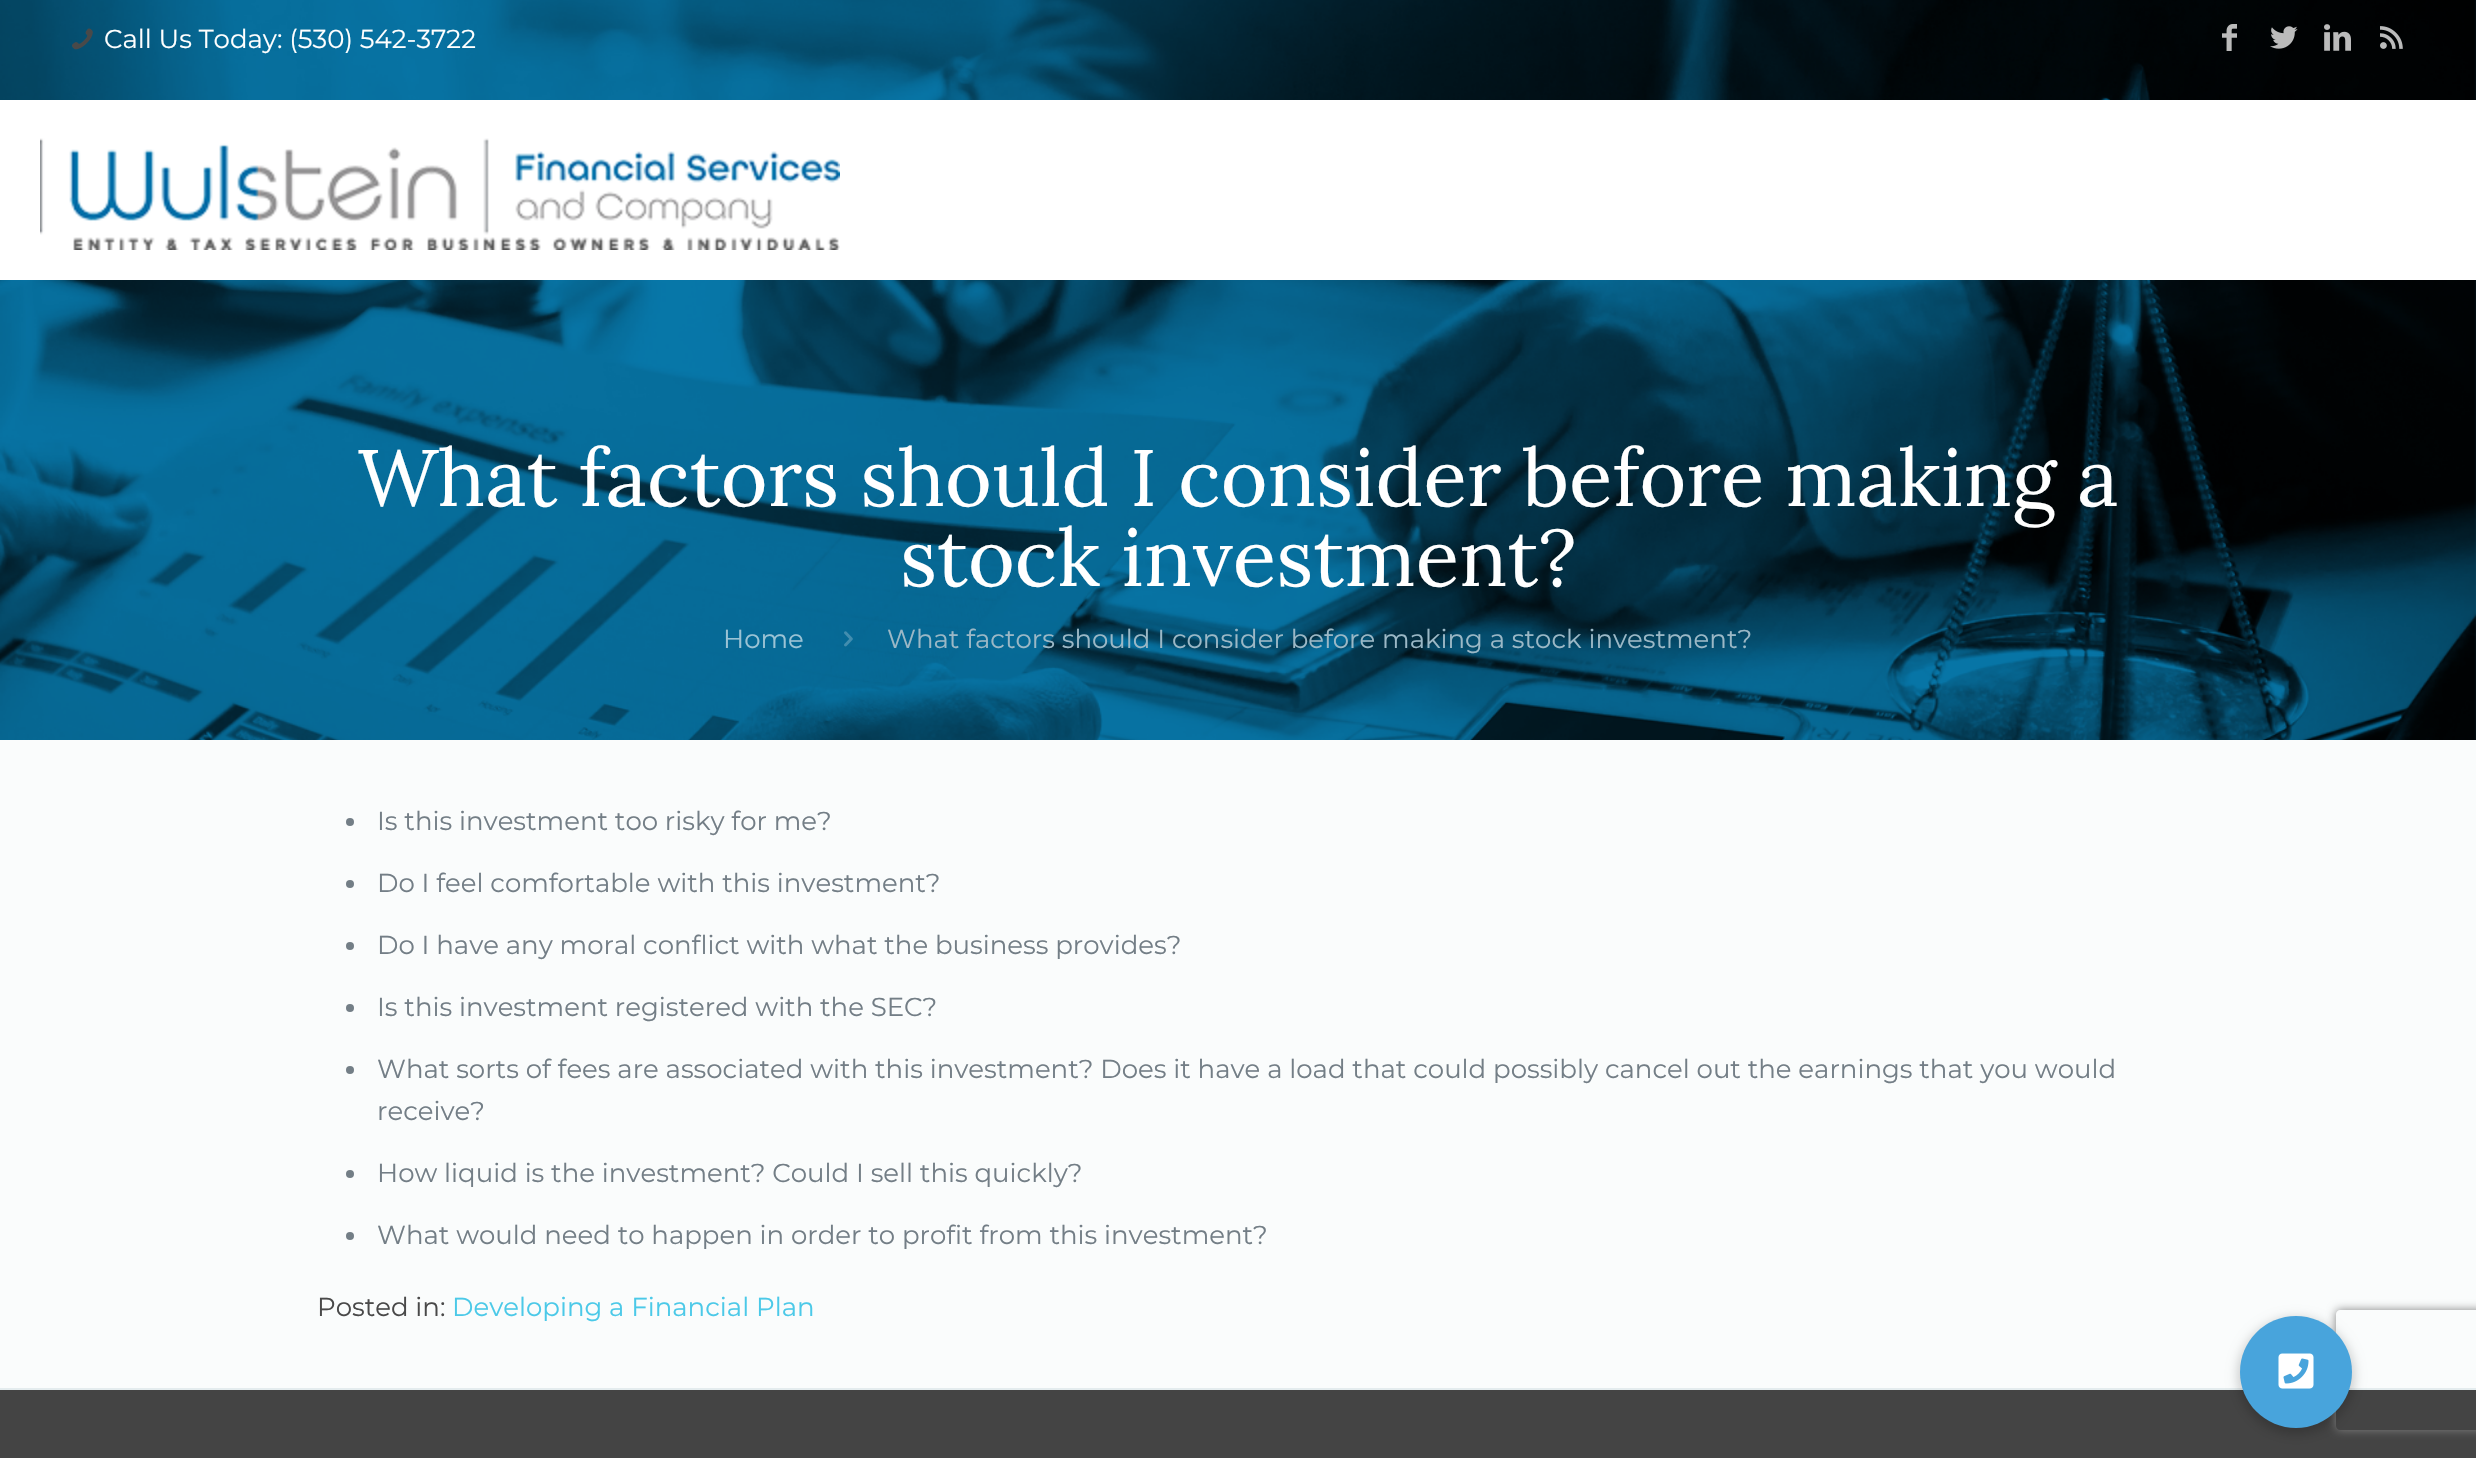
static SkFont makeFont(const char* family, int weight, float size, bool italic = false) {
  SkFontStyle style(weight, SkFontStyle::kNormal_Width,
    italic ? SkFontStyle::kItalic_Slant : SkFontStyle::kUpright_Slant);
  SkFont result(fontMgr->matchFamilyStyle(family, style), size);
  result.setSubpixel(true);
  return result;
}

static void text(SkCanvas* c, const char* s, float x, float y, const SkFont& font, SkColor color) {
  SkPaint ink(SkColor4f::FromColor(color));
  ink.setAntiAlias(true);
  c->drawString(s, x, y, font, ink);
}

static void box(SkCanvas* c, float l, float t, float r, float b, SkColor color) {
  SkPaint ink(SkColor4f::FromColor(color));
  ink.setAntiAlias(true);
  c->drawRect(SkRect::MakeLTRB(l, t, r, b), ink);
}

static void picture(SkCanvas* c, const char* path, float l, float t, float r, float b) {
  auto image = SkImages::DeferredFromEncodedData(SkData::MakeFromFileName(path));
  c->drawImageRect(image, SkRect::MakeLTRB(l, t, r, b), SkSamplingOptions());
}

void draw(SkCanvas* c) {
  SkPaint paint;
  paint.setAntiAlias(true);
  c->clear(0xfffafcfc);
  picture(c, "img_01.png", 0, 0, 2476, 740);
  picture(c, "img_02.png", 72, 28, 93, 50);
  SkFont face1 = makeFont("Montserrat", 400, 26);
  text(c, "Call Us Today: (530) 542-3722", 104, 48, face1, 0xffffffff);
  picture(c, "img_03.png", 2222, 24, 2237, 51);
  picture(c, "img_04.png", 2270, 26, 2298, 49);
  picture(c, "img_05.png", 2324, 24, 2351, 51);
  picture(c, "img_06.png", 2380, 26, 2403, 49);
  box(c, 0, 100, 2476, 280, 0xffffffff);
  picture(c, "img_07.png", 40, 138, 840, 250);
  SkFont face2 = makeFont("Lora", 400, 80);
  text(c, "What factors should I consider before making a", 358, 506, face2, 0xffffffff);
  text(c, "stock investment?", 900, 586, face2, 0xffffffff);
  text(c, "Home", 723, 648, face1, 0xff9bc3d5);
  picture(c, "img_08.png", 844, 631, 853, 647);
  text(c, "What factors should I consider before making a stock investment?", 887, 648, face1, 0xff9bb8c6);
  paint.setColor(0xff737e86);
  c->drawCircle(350, 822, 4, paint);
  text(c, "Is this investment too risky for me?", 377, 830, face1, 0xff737e86);
  c->drawCircle(350, 884, 4, paint);
  text(c, "Do I feel comfortable with this investment?", 377, 892, face1, 0xff737e86);
  c->drawCircle(350, 946, 4, paint);
  text(c, "Do I have any moral conflict with what the business provides?", 377, 954, face1, 0xff737e86);
  c->drawCircle(350, 1008, 4, paint);
  text(c, "Is this investment registered with the SEC?", 377, 1016, face1, 0xff737e86);
  c->drawCircle(350, 1070, 4, paint);
  text(c, "What sorts of fees are associated with this investment? Does it have a load that could possibly cancel out the earnings that you would", 377, 1078, face1, 0xff737e86);
  text(c, "receive?", 377, 1120, face1, 0xff737e86);
  c->drawCircle(350, 1174, 4, paint);
  text(c, "How liquid is the investment? Could I sell this quickly?", 377, 1182, face1, 0xff737e86);
  c->drawCircle(350, 1236, 4, paint);
  text(c, "What would need to happen in order to profit from this investment?", 377, 1244, face1, 0xff737e86);
  text(c, "Posted in:", 317, 1316, face1, 0xff494949);
  text(c, "Developing a Financial Plan", 452, 1316, face1, 0xff4bc9e8);
  box(c, 0, 1390, 2476, 1458, 0xff444444);
  box(c, 0, 1388, 2476, 1390, 0xffe4ecee);
  paint.setColor(0x33000000);
  paint.setMaskFilter(SkMaskFilter::MakeBlur(kNormal_SkBlurStyle, 6));
  c->drawRoundRect(SkRect::MakeLTRB(2238, 1318, 2354, 1434), 58, 58, paint);
  paint.setMaskFilter(nullptr);
  c->save();
  c->clipPath(SkPathBuilder(SkPathFillType::kEvenOdd).moveTo(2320, 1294).lineTo(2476, 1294).lineTo(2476, 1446).lineTo(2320, 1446).close().moveTo(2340, 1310).lineTo(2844, 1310).cubicTo(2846, 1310, 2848, 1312, 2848, 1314).lineTo(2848, 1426).cubicTo(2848, 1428, 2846, 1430, 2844, 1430).lineTo(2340, 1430).cubicTo(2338, 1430, 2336, 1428, 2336, 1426).lineTo(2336, 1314).cubicTo(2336, 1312, 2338, 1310, 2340, 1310).close().detach(), true);
  paint.setColor(0xff808080);
  paint.setMaskFilter(SkMaskFilter::MakeBlur(kNormal_SkBlurStyle, 5));
  c->drawRoundRect(SkRect::MakeLTRB(2336, 1310, 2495, 1430), 4, 4, paint);
  paint.setMaskFilter(nullptr);
  c->restore();
  paint.setColor(0xff48a4dc);
  c->drawCircle(2296, 1372, 56, paint);
  picture(c, "img_09.png", 2278, 1353, 2314, 1389);
}
